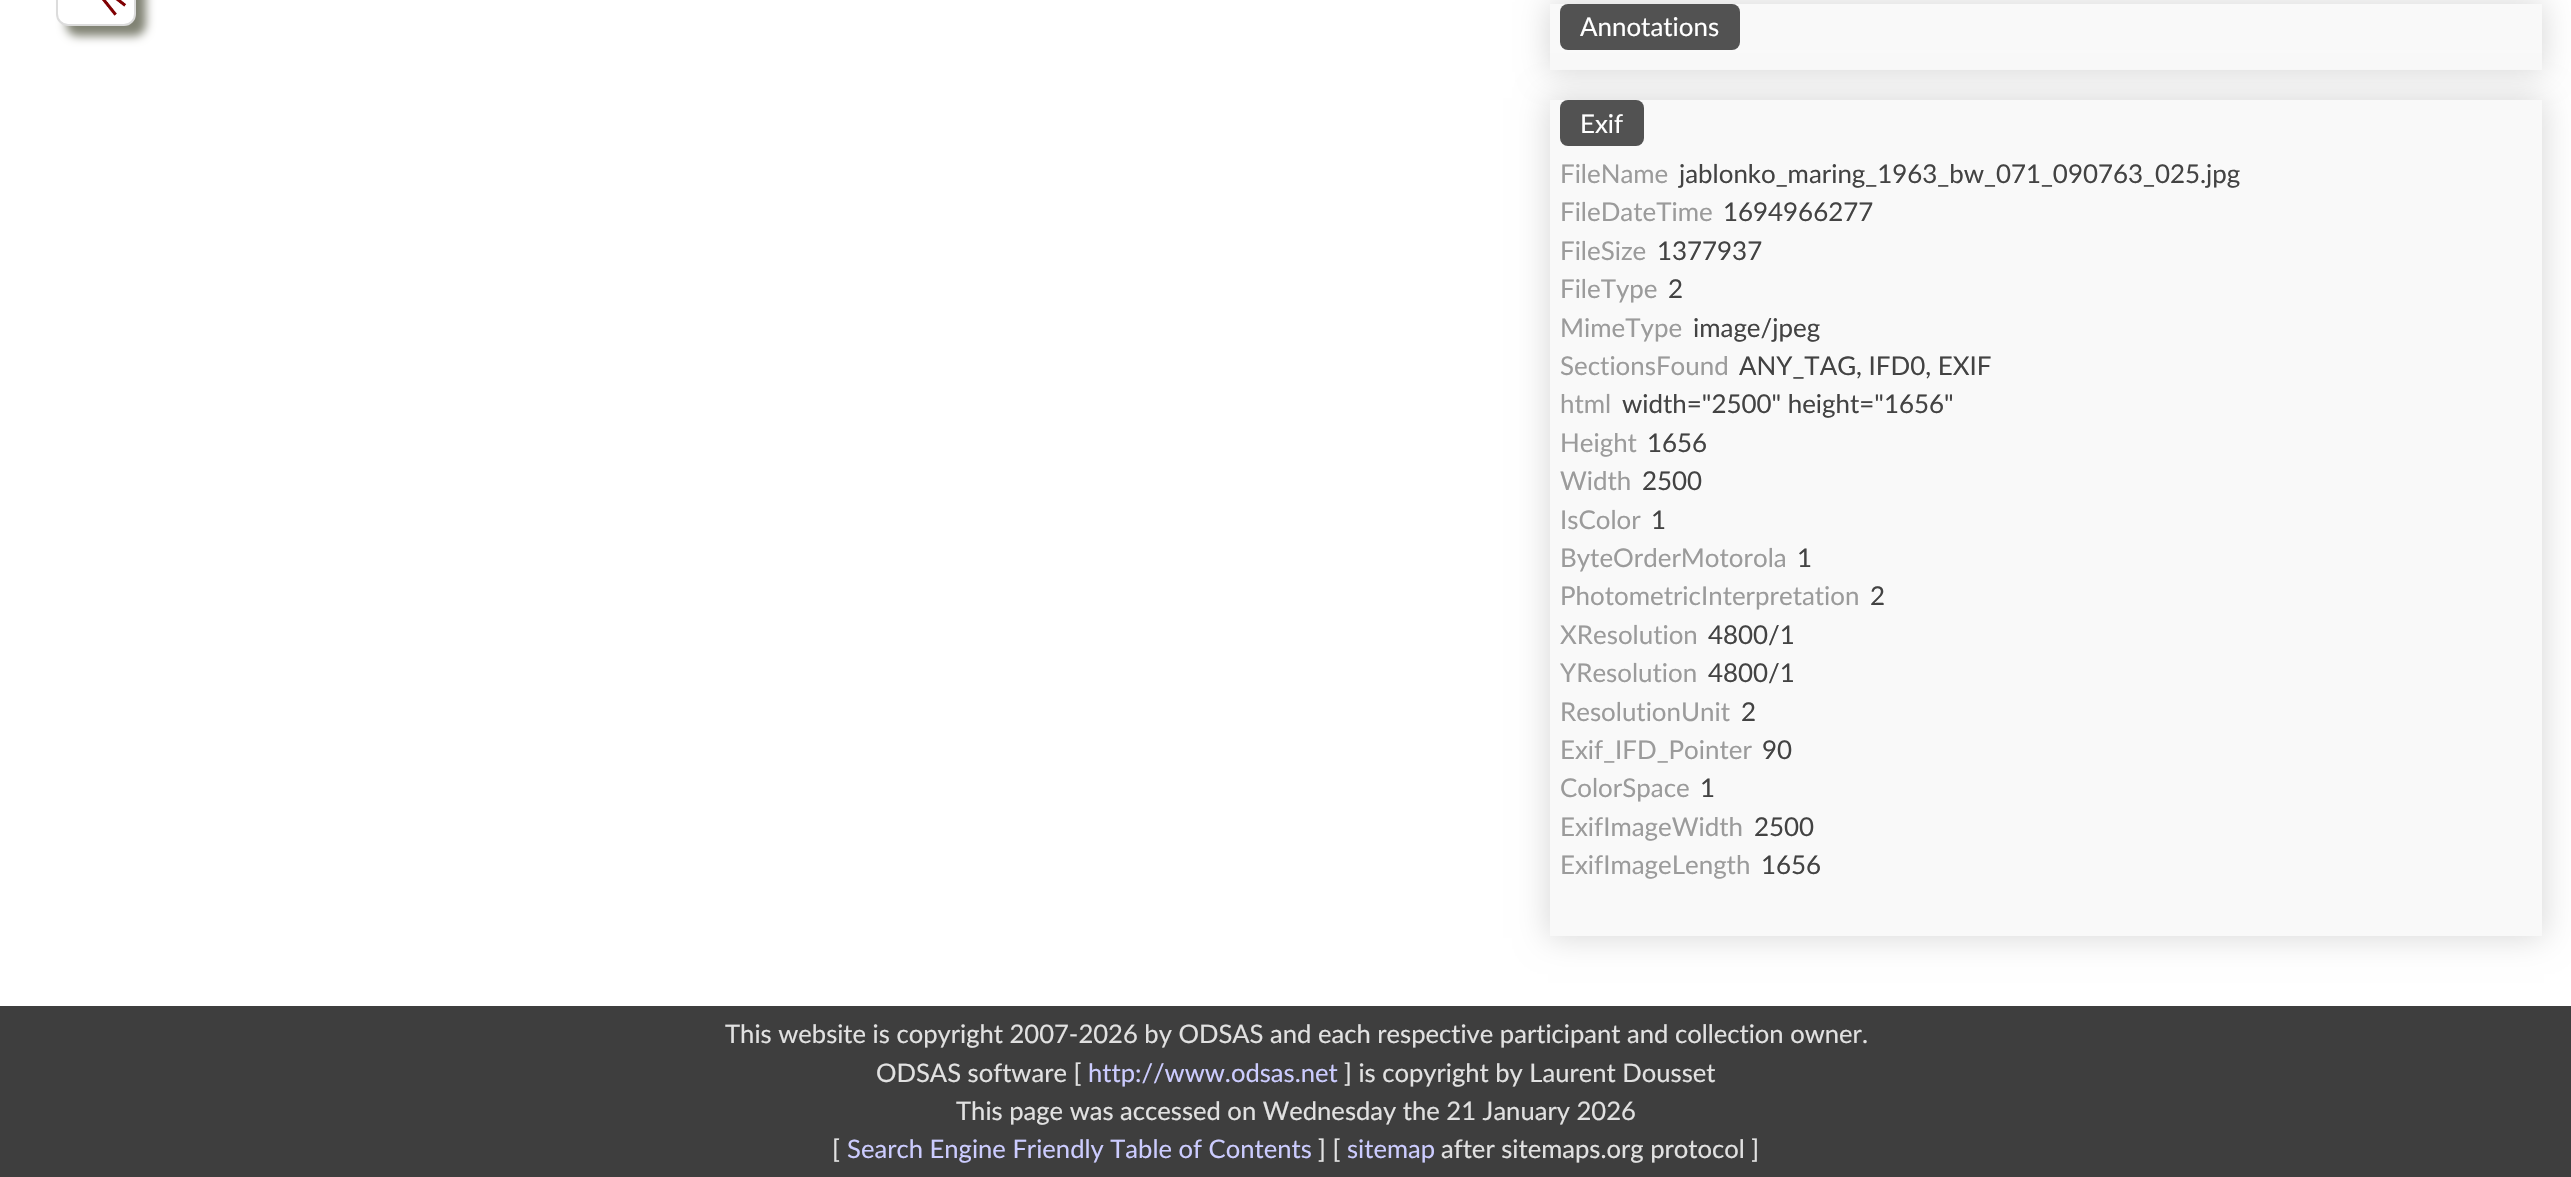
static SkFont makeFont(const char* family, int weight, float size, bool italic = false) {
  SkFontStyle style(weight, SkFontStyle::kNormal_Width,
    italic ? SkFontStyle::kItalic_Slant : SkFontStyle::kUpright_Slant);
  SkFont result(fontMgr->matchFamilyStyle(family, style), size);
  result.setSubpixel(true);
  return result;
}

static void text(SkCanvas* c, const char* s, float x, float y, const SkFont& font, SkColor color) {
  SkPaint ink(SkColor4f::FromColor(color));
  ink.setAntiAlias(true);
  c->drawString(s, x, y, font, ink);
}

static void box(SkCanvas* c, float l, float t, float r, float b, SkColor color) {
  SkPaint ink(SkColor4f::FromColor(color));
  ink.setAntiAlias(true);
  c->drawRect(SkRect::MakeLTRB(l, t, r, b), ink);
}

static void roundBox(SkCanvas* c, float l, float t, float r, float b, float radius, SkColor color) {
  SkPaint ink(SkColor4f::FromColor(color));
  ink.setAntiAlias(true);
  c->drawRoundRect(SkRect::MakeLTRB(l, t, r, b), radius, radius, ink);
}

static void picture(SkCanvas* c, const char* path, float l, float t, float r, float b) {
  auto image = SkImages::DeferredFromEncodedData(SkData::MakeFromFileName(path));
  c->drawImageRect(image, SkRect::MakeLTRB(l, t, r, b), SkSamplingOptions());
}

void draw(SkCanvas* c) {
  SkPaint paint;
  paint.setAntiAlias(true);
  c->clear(0xffffffff);
  paint.setColor(0xff818374);
  paint.setMaskFilter(SkMaskFilter::MakeBlur(kNormal_SkBlurStyle, 5));
  c->drawRoundRect(SkRect::MakeLTRB(66, -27, 146, 36), 12, 12, paint);
  paint.setMaskFilter(nullptr);
  paint.setColor(0xffffffff);
  c->drawRoundRect(SkRect::MakeLTRB(57, -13, 135, 25), 11, 11, paint);
  paint.setStyle(SkPaint::kStroke_Style);
  paint.setStrokeWidth(2);
  paint.setColor(0xffdcdcdc);
  c->drawRoundRect(SkRect::MakeLTRB(57, -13, 135, 25), 11, 11, paint);
  picture(c, "img_01.png", 102, 0, 127, 16);
  paint.setStyle(SkPaint::kFill_Style);
  paint.setColor(0x26000000);
  paint.setMaskFilter(SkMaskFilter::MakeBlur(kNormal_SkBlurStyle, 15));
  c->drawRect(SkRect::MakeLTRB(1548, 2, 2544, 72), paint);
  paint.setMaskFilter(nullptr);
  box(c, 1550, 4, 2542, 70, 0xfff9f9f9);
  roundBox(c, 1560, 4, 1740, 50, 8, 0xff525252);
  SkFont face1 = makeFont("Lato", 400, 25.9f);
  text(c, "Annotations", 1580, 36, face1, 0xffffffff);
  paint.setMaskFilter(SkMaskFilter::MakeBlur(kNormal_SkBlurStyle, 15));
  c->drawRect(SkRect::MakeLTRB(1548, 98, 2544, 938), paint);
  paint.setMaskFilter(nullptr);
  box(c, 1550, 100, 2542, 936, 0xfff9f9f9);
  roundBox(c, 1560, 100, 1644, 146, 8, 0xff525252);
  text(c, "Exif", 1580, 133, face1, 0xffffffff);
  text(c, "FileName", 1560, 183, face1, 0xff9b9b9b);
  text(c, "jablonko_maring_1963_bw_071_090763_025.jpg", 1679, 183, face1, 0xff434343);
  text(c, "FileDateTime", 1560, 221, face1, 0xff9b9b9b);
  text(c, "1694966277", 1723, 221, face1, 0xff434343);
  text(c, "FileSize", 1560, 260, face1, 0xff9b9b9b);
  text(c, "1377937", 1657, 260, face1, 0xff434343);
  text(c, "FileType", 1560, 298, face1, 0xff9b9b9b);
  text(c, "2", 1668, 298, face1, 0xff434343);
  text(c, "MimeType", 1560, 337, face1, 0xff9b9b9b);
  text(c, "image/jpeg", 1693, 337, face1, 0xff434343);
  text(c, "SectionsFound", 1560, 375, face1, 0xff9b9b9b);
  text(c, "ANY_TAG, IFD0, EXIF", 1739, 375, face1, 0xff434343);
  text(c, "html", 1560, 413, face1, 0xff9b9b9b);
  text(c, "width=\"2500\" height=\"1656\"", 1622, 413, face1, 0xff434343);
  text(c, "Height", 1560, 452, face1, 0xff9b9b9b);
  text(c, "1656", 1647, 452, face1, 0xff434343);
  text(c, "Width", 1560, 490, face1, 0xff9b9b9b);
  text(c, "2500", 1642, 490, face1, 0xff434343);
  text(c, "IsColor", 1560, 529, face1, 0xff9b9b9b);
  text(c, "1", 1651, 529, face1, 0xff434343);
  text(c, "ByteOrderMotorola", 1560, 567, face1, 0xff9b9b9b);
  text(c, "1", 1797, 567, face1, 0xff434343);
  text(c, "PhotometricInterpretation", 1560, 605, face1, 0xff9b9b9b);
  text(c, "2", 1870, 605, face1, 0xff434343);
  text(c, "XResolution", 1560, 644, face1, 0xff9b9b9b);
  text(c, "4800/1", 1708, 644, face1, 0xff434343);
  text(c, "YResolution", 1560, 682, face1, 0xff9b9b9b);
  text(c, "4800/1", 1708, 682, face1, 0xff434343);
  text(c, "ResolutionUnit", 1560, 721, face1, 0xff9b9b9b);
  text(c, "2", 1741, 721, face1, 0xff434343);
  text(c, "Exif_IFD_Pointer", 1560, 759, face1, 0xff9b9b9b);
  text(c, "90", 1762, 759, face1, 0xff434343);
  text(c, "ColorSpace", 1560, 797, face1, 0xff9b9b9b);
  text(c, "1", 1700, 797, face1, 0xff434343);
  text(c, "ExifImageWidth", 1560, 836, face1, 0xff9b9b9b);
  text(c, "2500", 1754, 836, face1, 0xff434343);
  text(c, "ExifImageLength", 1560, 874, face1, 0xff9b9b9b);
  text(c, "1656", 1761, 874, face1, 0xff434343);
  box(c, 0, 1006, 2571, 1177, 0xff3e3e3e);
  SkFont face2 = makeFont("Lato", 400, 25.6f);
  text(c, "This website is copyright 2007-2026 by ODSAS and each respective participant and collection owner.", 725, 1043, face2, 0xffe1e1e1);
  text(c, "ODSAS software [", 876, 1082, face2, 0xffe1e1e1);
  text(c, "http://www.odsas.net", 1088, 1082, face2, 0xffccccff);
  text(c, "] is copyright by Laurent Dousset", 1344, 1082, face2, 0xffe1e1e1);
  text(c, "This page was accessed on Wednesday the 21 January 2026", 956, 1120, face2, 0xffe1e1e1);
  text(c, "[", 832, 1158, face2, 0xffe1e1e1);
  text(c, "Search Engine Friendly Table of Contents", 847, 1158, face2, 0xffccccff);
  text(c, "] [", 1318, 1158, face2, 0xffe1e1e1);
  text(c, "sitemap", 1347, 1158, face2, 0xffccccff);
  text(c, "after sitemaps.org protocol ]", 1441, 1158, face2, 0xffe1e1e1);
}
